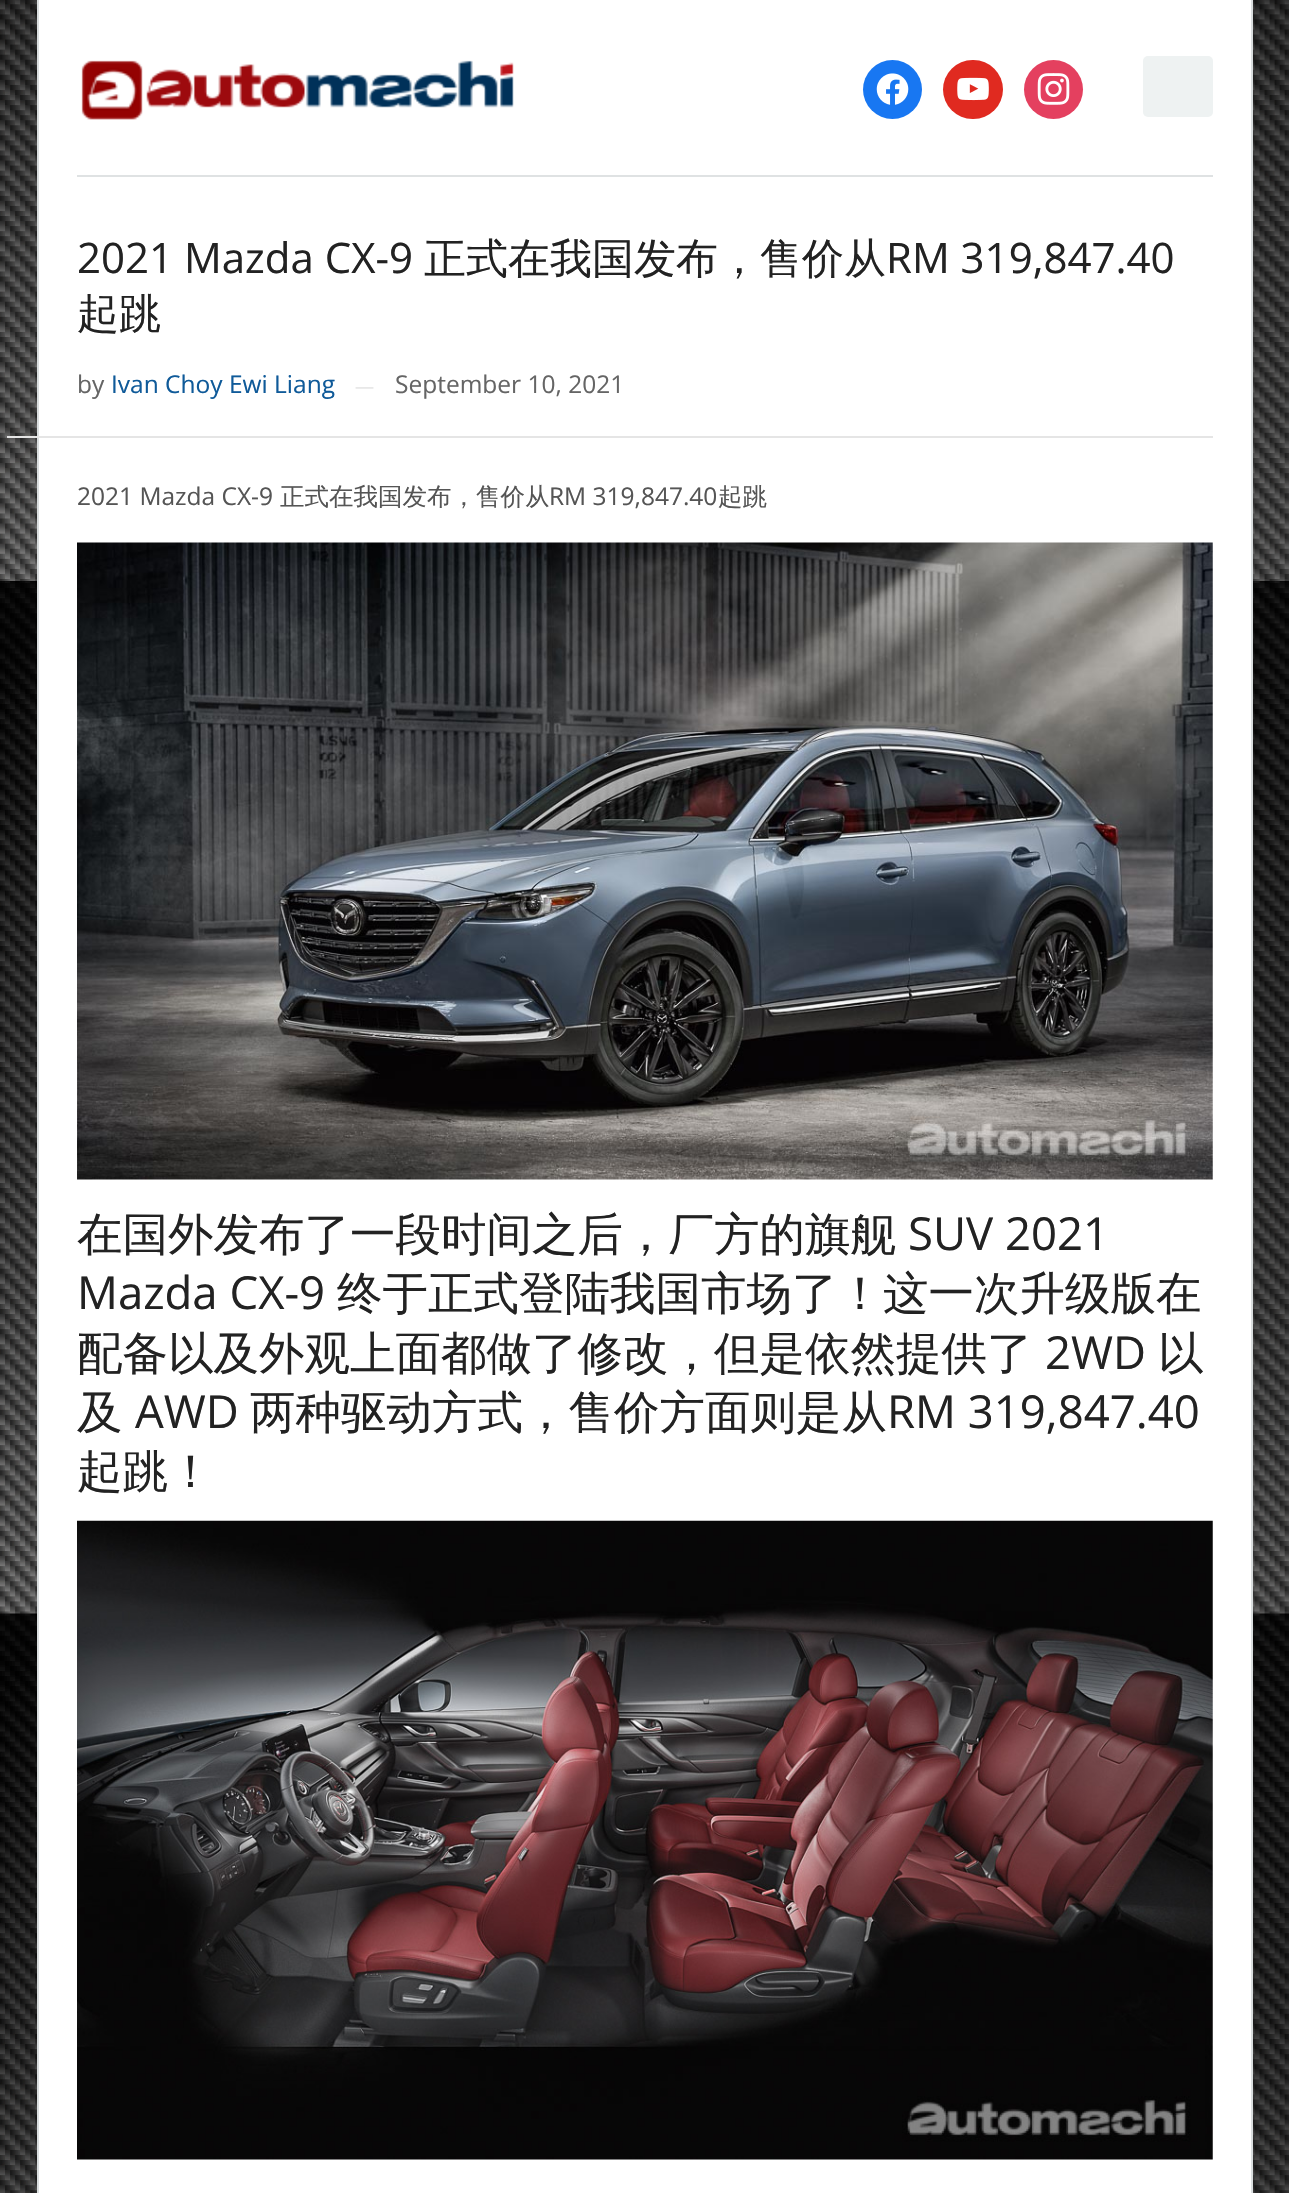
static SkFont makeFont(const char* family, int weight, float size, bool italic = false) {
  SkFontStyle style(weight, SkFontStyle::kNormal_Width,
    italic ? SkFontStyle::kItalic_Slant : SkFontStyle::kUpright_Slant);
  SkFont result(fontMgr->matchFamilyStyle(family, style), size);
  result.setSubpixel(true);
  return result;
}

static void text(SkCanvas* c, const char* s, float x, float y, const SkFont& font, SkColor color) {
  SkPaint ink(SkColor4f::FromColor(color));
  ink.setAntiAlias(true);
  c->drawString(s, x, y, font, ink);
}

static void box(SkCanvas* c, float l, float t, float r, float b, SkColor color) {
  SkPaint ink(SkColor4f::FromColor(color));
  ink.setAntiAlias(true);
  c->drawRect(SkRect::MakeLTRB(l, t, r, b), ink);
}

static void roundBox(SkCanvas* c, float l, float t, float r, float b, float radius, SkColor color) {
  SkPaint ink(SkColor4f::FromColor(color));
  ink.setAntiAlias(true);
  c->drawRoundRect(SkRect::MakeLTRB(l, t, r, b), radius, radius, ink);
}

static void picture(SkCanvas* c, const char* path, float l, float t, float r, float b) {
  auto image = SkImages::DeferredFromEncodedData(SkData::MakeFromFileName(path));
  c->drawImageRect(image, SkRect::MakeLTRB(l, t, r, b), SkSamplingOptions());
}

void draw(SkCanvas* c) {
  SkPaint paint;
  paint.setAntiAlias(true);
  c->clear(0xffffffff);
  picture(c, "img_01.png", 0, 0, 1289, 2193);
  box(c, 39, 0, 1251, 2193, 0xffffffff);
  box(c, 1251, 0, 1253, 2193, 0xffdadedf);
  box(c, 37, 0, 39, 2193, 0xffdadedf);
  box(c, 77, 175, 1213, 177, 0xffdfe2e3);
  paint.setColor(0xff1877f2);
  c->drawCircle(892.5f, 89.5f, 29.5f, paint);
  picture(c, "img_02.png", 876, 73, 909, 105);
  roundBox(c, 943, 60, 1003, 119, 29.5f, 0xffe02a20);
  picture(c, "img_03.png", 957, 77, 989, 101);
  paint.setColor(0xffe4405f);
  c->drawCircle(1053.5f, 89.5f, 29.5f, paint);
  picture(c, "img_04.png", 1037, 73, 1070, 105);
  roundBox(c, 1143, 56, 1213, 117, 5, 0xffeef2f2);
  picture(c, "img_05.png", 81, 60, 514, 120);
  SkFont face1 = makeFont("Open Sans", 400, 42);
  text(c, "2021 Mazda CX-9", 77, 273, face1, 0xff222222);
  SkFont face2 = makeFont("WenQuanYi Zen Hei", 500, 42);
  text(c, "正式在我国发布，售价从", 424, 273, face2, 0xff222222);
  text(c, "RM 319,847.40", 886, 273, face1, 0xff222222);
  text(c, "起跳", 77, 328, face2, 0xff222222);
  box(c, 7, 436, 1213, 438, 0xffe5e5e5);
  SkFont face3 = makeFont("Open Sans", 400, 24.5f);
  text(c, "by", 77, 393, face3, 0xff656565);
  text(c, "Ivan Choy Ewi Liang", 111, 393, face3, 0xff0f5a99);
  SkFont face4 = makeFont("Open Sans", 400, 19);
  text(c, "—", 355, 393, face4, 0xffe5e5e5);
  text(c, "September 10, 2021", 395, 393, face3, 0xff656565);
  text(c, "2021 Mazda CX-9", 77, 505, face3, 0xff555555);
  SkFont face5 = makeFont("WenQuanYi Zen Hei", 500, 24.5f);
  text(c, "正式在我国发布，售价从", 280, 505, face5, 0xff555555);
  text(c, "RM 319,847.40", 549, 505, face3, 0xff555555);
  text(c, "起跳", 718, 505, face5, 0xff555555);
  picture(c, "img_06.png", 77, 542, 1213, 1180);
  SkFont face6 = makeFont("WenQuanYi Zen Hei", 500, 45.5f);
  text(c, "在国外发布了一段时间之后，厂方的旗舰", 77, 1250, face6, 0xff222222);
  SkFont face7 = makeFont("Open Sans", 400, 45.5f);
  text(c, "SUV 2021", 908, 1250, face7, 0xff222222);
  text(c, "Mazda CX-9", 77, 1309, face7, 0xff222222);
  text(c, "终于正式登陆我国市场了！这一次升级版在", 337, 1309, face6, 0xff222222);
  text(c, "配备以及外观上面都做了修改，但是依然提供了", 77, 1369, face6, 0xff222222);
  text(c, "2WD", 1045, 1369, face7, 0xff222222);
  text(c, "以", 1158, 1369, face6, 0xff222222);
  text(c, "及", 77, 1428, face6, 0xff222222);
  text(c, "AWD", 135, 1428, face7, 0xff222222);
  text(c, "两种驱动方式，售价方面则是从", 250, 1428, face6, 0xff222222);
  text(c, "RM 319,847.40", 887, 1428, face7, 0xff222222);
  text(c, "起跳！", 77, 1487, face6, 0xff222222);
  picture(c, "img_07.png", 77, 1520, 1213, 2160);
}
